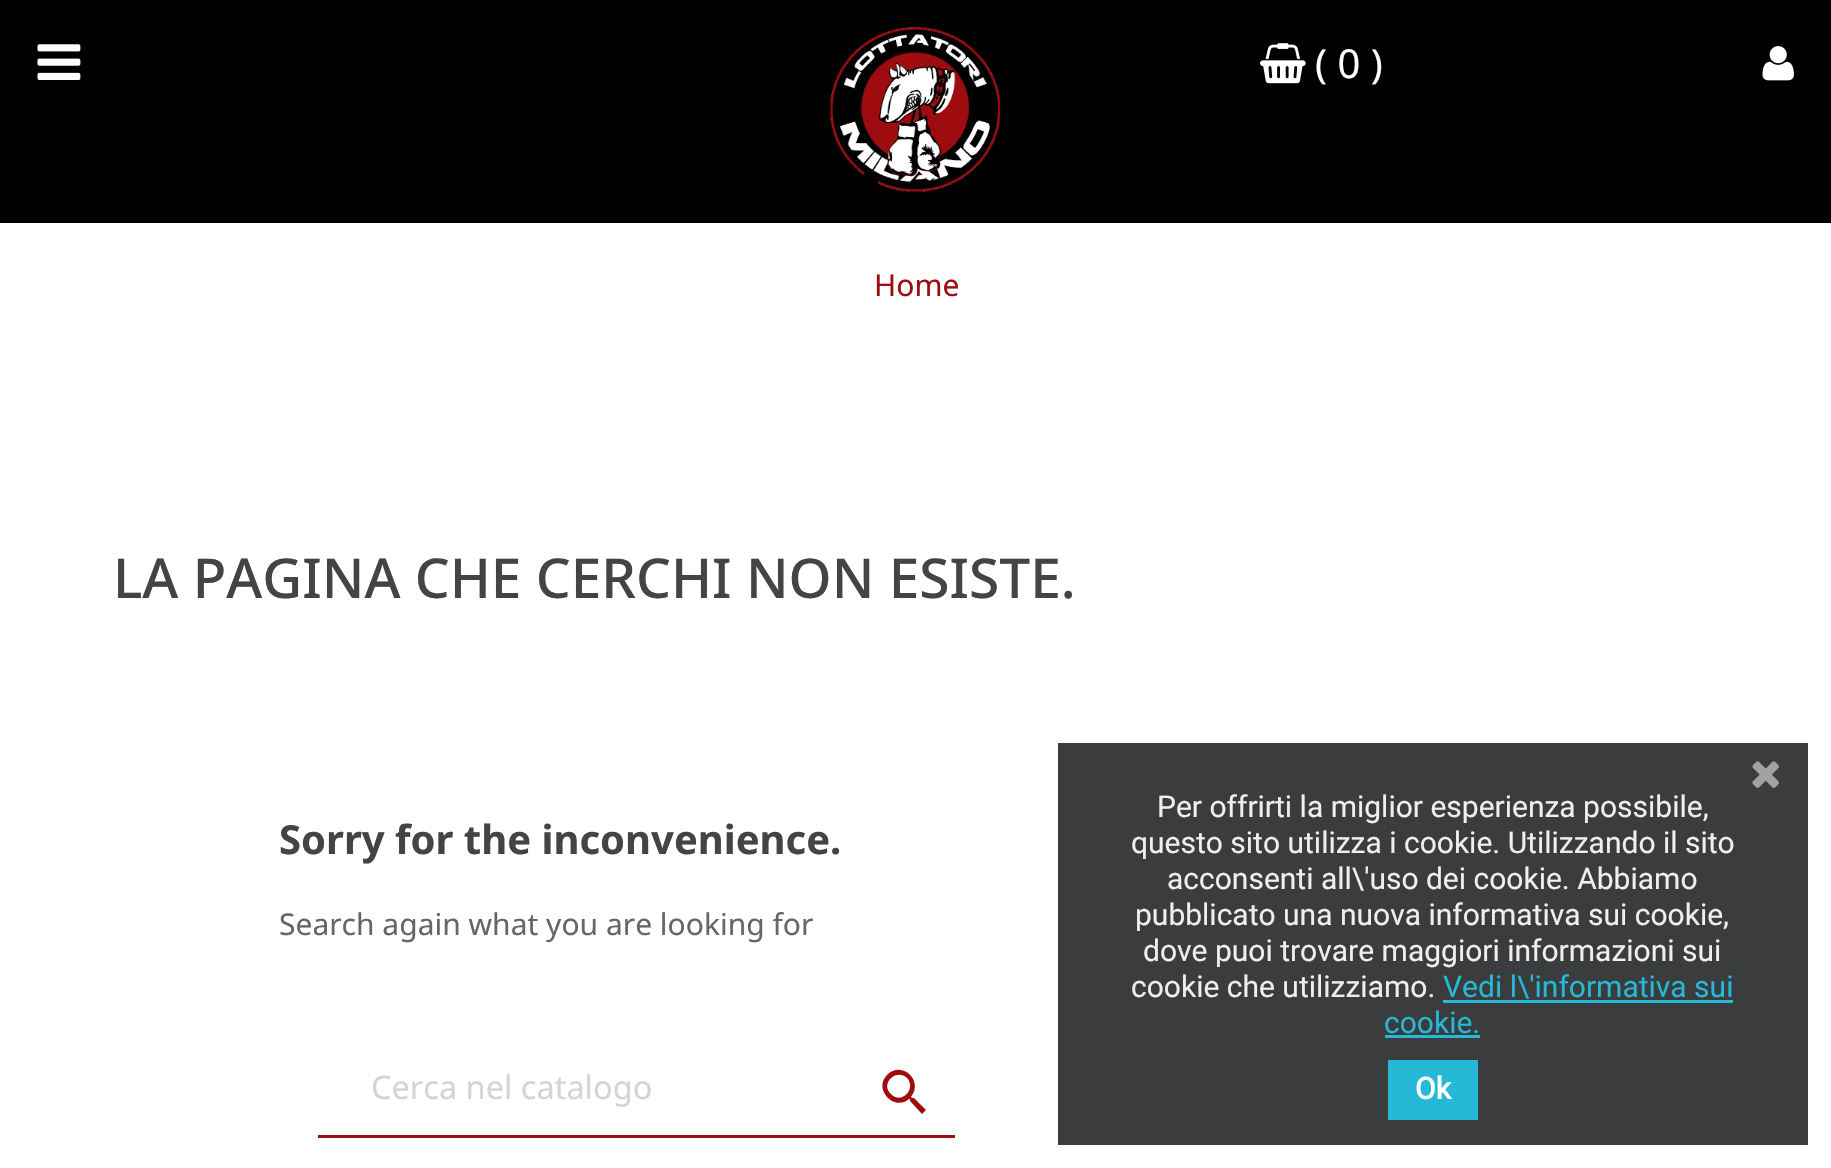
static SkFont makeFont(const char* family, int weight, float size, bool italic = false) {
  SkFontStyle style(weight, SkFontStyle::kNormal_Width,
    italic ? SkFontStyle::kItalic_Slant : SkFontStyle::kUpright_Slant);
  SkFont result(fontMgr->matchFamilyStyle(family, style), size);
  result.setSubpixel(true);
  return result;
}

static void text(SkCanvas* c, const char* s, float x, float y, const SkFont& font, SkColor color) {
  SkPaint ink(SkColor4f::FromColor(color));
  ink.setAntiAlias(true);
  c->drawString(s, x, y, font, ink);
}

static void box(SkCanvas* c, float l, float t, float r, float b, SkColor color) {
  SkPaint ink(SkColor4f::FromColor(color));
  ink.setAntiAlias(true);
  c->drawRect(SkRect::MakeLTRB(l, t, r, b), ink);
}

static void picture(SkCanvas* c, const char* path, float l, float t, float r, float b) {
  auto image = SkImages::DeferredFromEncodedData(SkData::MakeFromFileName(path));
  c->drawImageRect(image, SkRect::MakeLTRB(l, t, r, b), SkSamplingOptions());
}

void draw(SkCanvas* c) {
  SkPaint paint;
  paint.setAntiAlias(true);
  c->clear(0xffffffff);
  box(c, 0, 0, 1831, 223, 0xff000000);
  picture(c, "img_01.png", 37, 44, 81, 80);
  picture(c, "img_02.png", 830, 27, 1001, 192);
  picture(c, "img_03.png", 1260, 43, 1306, 84);
  SkFont face1 = makeFont("Noto Sans", 400, 40);
  text(c, "( 0 )", 1315, 78, face1, 0xffffffff);
  picture(c, "img_04.png", 1762, 46, 1794, 81);
  SkFont face2 = makeFont("Noto Sans", 400, 30);
  text(c, "Home", 874, 296, face2, 0xff9e0c0f);
  SkFont face3 = makeFont("Noto Sans", 500, 55);
  text(c, "LA PAGINA CHE CERCHI NON ESISTE.", 113, 598, face3, 0xff444444);
  SkFont face4 = makeFont("Noto Sans", 700, 40);
  text(c, "Sorry for the inconvenience.", 279, 854, face4, 0xff444444);
  text(c, "Search again what you are looking for", 279, 935, face2, 0xff666666);
  box(c, 318, 1135, 955, 1138, 0xff9e0c0f);
  SkFont face5 = makeFont("Noto Sans", 400, 32.5f);
  text(c, "Cerca nel catalogo", 371, 1099, face5, 0xffd5d4d3);
  paint.setColor(0xff9e0c0f);
  c->drawPath(SkPathBuilder().moveTo(891, 1094).cubicTo(901, 1105, 917, 1089, 907, 1078).cubicTo(896, 1068, 880, 1084, 891, 1094).close().moveTo(914, 1098).lineTo(926, 1110).lineTo(922, 1114).lineTo(910, 1101).lineTo(910, 1099).lineTo(909, 1099).cubicTo(894, 1112, 873, 1089, 887, 1075).cubicTo(902, 1060, 924, 1081, 911, 1097).lineTo(912, 1098).close().detach(), paint);
  box(c, 1058, 743, 1808, 1145, 0xff3a3c3e);
  picture(c, "img_05.png", 1752, 761, 1779, 788);
  SkFont face6 = makeFont("Roboto", 400, 30);
  text(c, "Per offrirti la miglior esperienza possibile,", 1157, 817, face6, 0xffefefef);
  text(c, "questo sito utilizza i cookie. Utilizzando il sito", 1131, 853, face6, 0xffefefef);
  text(c, "acconsenti all\\'uso dei cookie. Abbiamo", 1167, 889, face6, 0xffefefef);
  text(c, "pubblicato una nuova informativa sui cookie,", 1135, 925, face6, 0xffefefef);
  text(c, "dove puoi trovare maggiori informazioni sui", 1143, 961, face6, 0xffefefef);
  text(c, "cookie che utilizziamo.", 1131, 997, face6, 0xffefefef);
  text(c, "Vedi l\\'informativa sui", 1443, 997, face6, 0xff25b9d7);
  box(c, 1443, 1000, 1733, 1003, 0xff25b9d7);
  text(c, "cookie.", 1384, 1033, face6, 0xff25b9d7);
  box(c, 1385, 1035, 1480, 1038, 0xff25b9d7);
  box(c, 1388, 1060, 1478, 1120, 0xff25b9d7);
  SkFont face7 = makeFont("Roboto", 700, 30);
  text(c, "Ok", 1415, 1099, face7, 0xffffffff);
}
